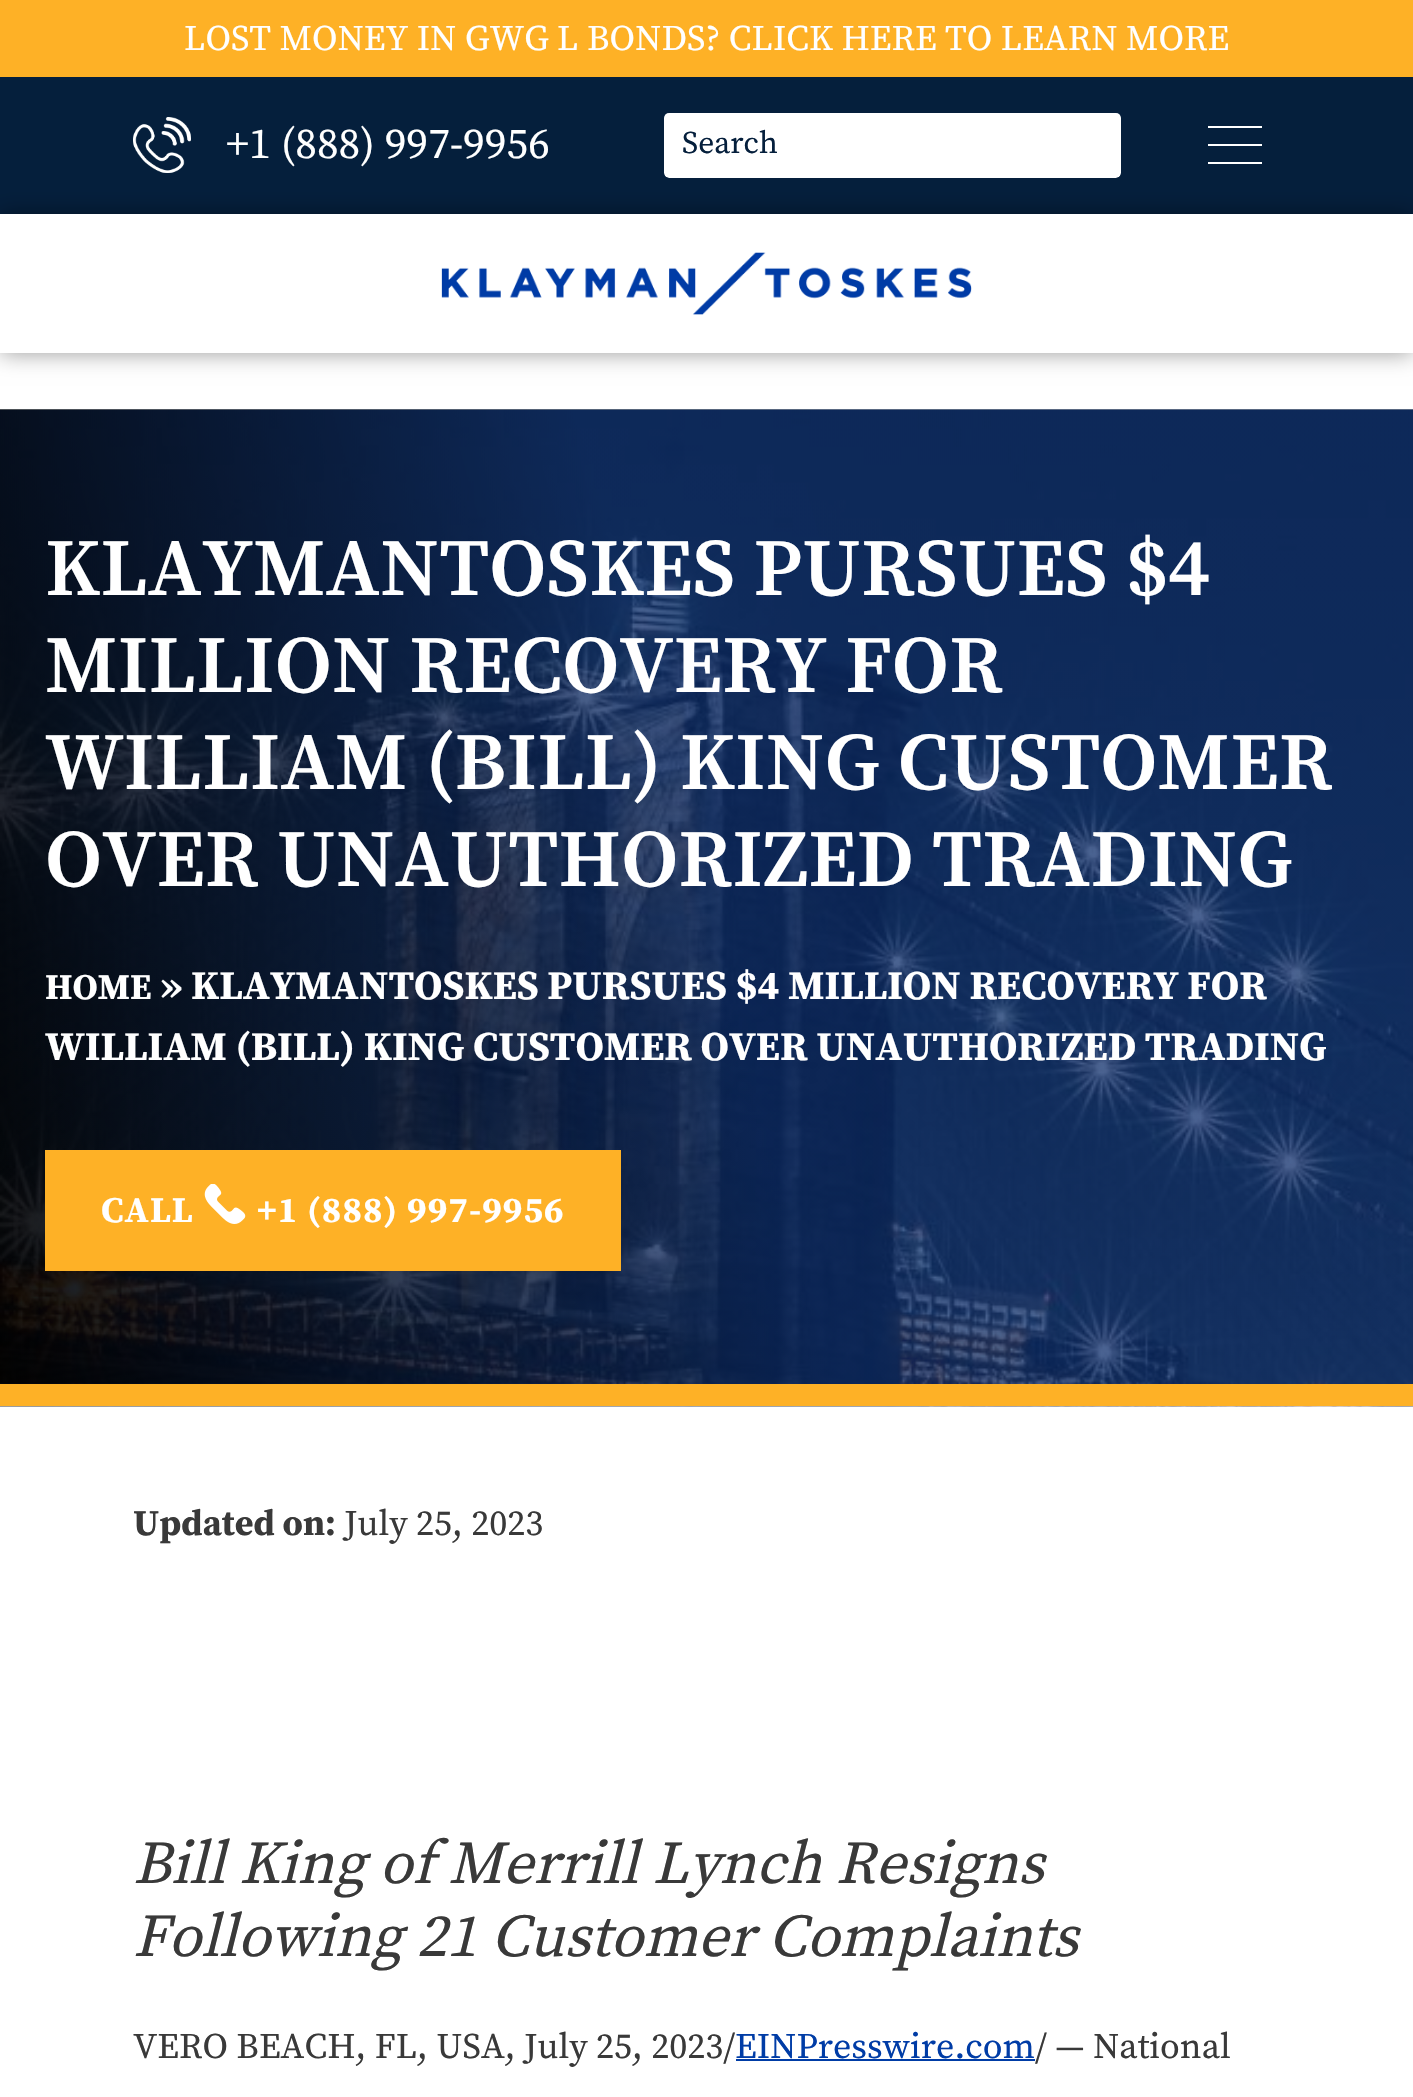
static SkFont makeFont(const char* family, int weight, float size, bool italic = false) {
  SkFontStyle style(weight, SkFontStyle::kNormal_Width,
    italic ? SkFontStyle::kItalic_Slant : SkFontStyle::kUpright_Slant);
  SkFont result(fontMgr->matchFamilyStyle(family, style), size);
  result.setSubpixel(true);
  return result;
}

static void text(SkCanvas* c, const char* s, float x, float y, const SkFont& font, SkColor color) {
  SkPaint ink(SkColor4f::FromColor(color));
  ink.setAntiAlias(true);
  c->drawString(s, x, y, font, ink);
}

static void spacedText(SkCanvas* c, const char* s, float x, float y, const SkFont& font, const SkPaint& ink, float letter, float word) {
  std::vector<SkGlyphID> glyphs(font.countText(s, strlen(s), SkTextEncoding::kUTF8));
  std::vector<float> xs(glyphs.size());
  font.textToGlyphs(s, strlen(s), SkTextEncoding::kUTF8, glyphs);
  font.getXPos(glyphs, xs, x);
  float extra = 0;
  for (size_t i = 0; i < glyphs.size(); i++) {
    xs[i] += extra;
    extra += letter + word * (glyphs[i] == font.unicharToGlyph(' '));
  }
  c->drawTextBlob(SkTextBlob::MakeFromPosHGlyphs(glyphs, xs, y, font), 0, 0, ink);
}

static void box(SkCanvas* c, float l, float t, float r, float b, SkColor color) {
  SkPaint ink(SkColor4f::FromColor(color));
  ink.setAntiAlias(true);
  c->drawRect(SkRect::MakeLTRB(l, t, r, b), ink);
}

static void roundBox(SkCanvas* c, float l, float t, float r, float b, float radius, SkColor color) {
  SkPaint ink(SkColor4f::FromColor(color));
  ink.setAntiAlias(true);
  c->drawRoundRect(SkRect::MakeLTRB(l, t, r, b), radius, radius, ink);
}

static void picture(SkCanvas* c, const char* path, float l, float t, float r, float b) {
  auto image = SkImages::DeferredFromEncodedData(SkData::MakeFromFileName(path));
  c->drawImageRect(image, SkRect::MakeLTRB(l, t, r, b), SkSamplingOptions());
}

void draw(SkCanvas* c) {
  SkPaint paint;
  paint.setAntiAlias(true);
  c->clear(0xffffffff);
  box(c, 0, 0, 1413, 77, 0xfffeb126);
  SkFont face1 = makeFont("Source Serif Pro", 400, 36);
  text(c, "LOST MONEY IN GWG L BONDS? CLICK HERE TO LEARN MORE", 184, 50, face1, 0xffffffff);
  box(c, 0, 77, 1413, 214, 0xff051f3c);
  picture(c, "img_01.png", 133, 117, 191, 173);
  SkFont face2 = makeFont("Source Serif Pro", 400, 43.25f);
  text(c, "+1 (888) 997-9956", 226, 158, face2, 0xffffffff);
  roundBox(c, 664, 113, 1121, 178, 5, 0xffffffff);
  paint.setStyle(SkPaint::kStroke_Style);
  paint.setStrokeWidth(2);
  paint.setColor(0xff051f3c);
  c->drawRoundRect(SkRect::MakeLTRB(663, 111, 1122, 179), 6, 6, paint);
  SkFont face3 = makeFont("Source Serif Pro", 400, 31.5f);
  text(c, "Search", 682, 153, face3, 0xff051f3c);
  box(c, 1208, 126, 1262, 128, 0xffffffff);
  box(c, 1208, 144, 1262, 146, 0xffffffff);
  box(c, 1208, 162, 1262, 164, 0xffffffff);
  paint.setStyle(SkPaint::kFill_Style);
  paint.setColor(0x66000000);
  paint.setMaskFilter(SkMaskFilter::MakeBlur(kNormal_SkBlurStyle, 11));
  c->drawRect(SkRect::MakeLTRB(0, 214, 1413, 353), paint);
  paint.setMaskFilter(nullptr);
  box(c, 0, 214, 1413, 353, 0xffffffff);
  picture(c, "img_02.png", 441, 252, 972, 315);
  picture(c, "img_03.png", 0, 409, 1413, 1407);
  box(c, 0, 1384, 1413, 1406, 0xfffeb126);
  SkFont face4 = makeFont("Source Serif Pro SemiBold", 600, 81);
  text(c, "KLAYMANTOSKES PURSUES $4", 45, 595, face4, 0xffffffff);
  text(c, "MILLION RECOVERY FOR", 45, 692, face4, 0xffffffff);
  text(c, "WILLIAM (BILL) KING CUSTOMER", 45, 789, face4, 0xffffffff);
  text(c, "OVER UNAUTHORIZED TRADING", 45, 886, face4, 0xffffffff);
  SkFont face5 = makeFont("Source Serif Pro", 700, 36);
  text(c, "HOME", 45, 999, face5, 0xffffffff);
  SkFont face6 = makeFont("Source Serif Pro", 700, 40.5f);
  text(c, "» KLAYMANTOSKES PURSUES $4 MILLION RECOVERY FOR", 160, 999, face6, 0xffffffff);
  text(c, "WILLIAM (BILL) KING CUSTOMER OVER UNAUTHORIZED TRADING", 45, 1060, face6, 0xffffffff);
  box(c, 45, 1150, 621, 1271, 0xfffeb126);
  paint.setColor(0xffffffff);
  spacedText(c, "CALL", 101, 1222, face5, paint, 1.1f, 0);
  picture(c, "img_04.png", 204, 1184, 246, 1224);
  spacedText(c, "+1 (888) 997-9956", 257, 1222, face5, paint, 1.1f, 0);
  text(c, "Updated on:", 133, 1535, face5, 0xff393939);
  text(c, "July 25, 2023", 344, 1535, face1, 0xff393939);
  SkFont face7 = makeFont("Source Serif Pro", 400, 60.4f, true);
  text(c, "Bill King of Merrill Lynch Resigns", 133, 1883, face7, 0xff393939);
  text(c, "Following 21 Customer Complaints", 133, 1956, face7, 0xff393939);
  text(c, "VERO BEACH, FL, USA, July 25, 2023/", 133, 2058, face1, 0xff393939);
  text(c, "EINPresswire.com", 735, 2058, face1, 0xff003ca6);
  box(c, 736, 2059, 1035, 2061, 0xff003ca6);
  text(c, "/ — National", 1035, 2058, face1, 0xff393939);
}
